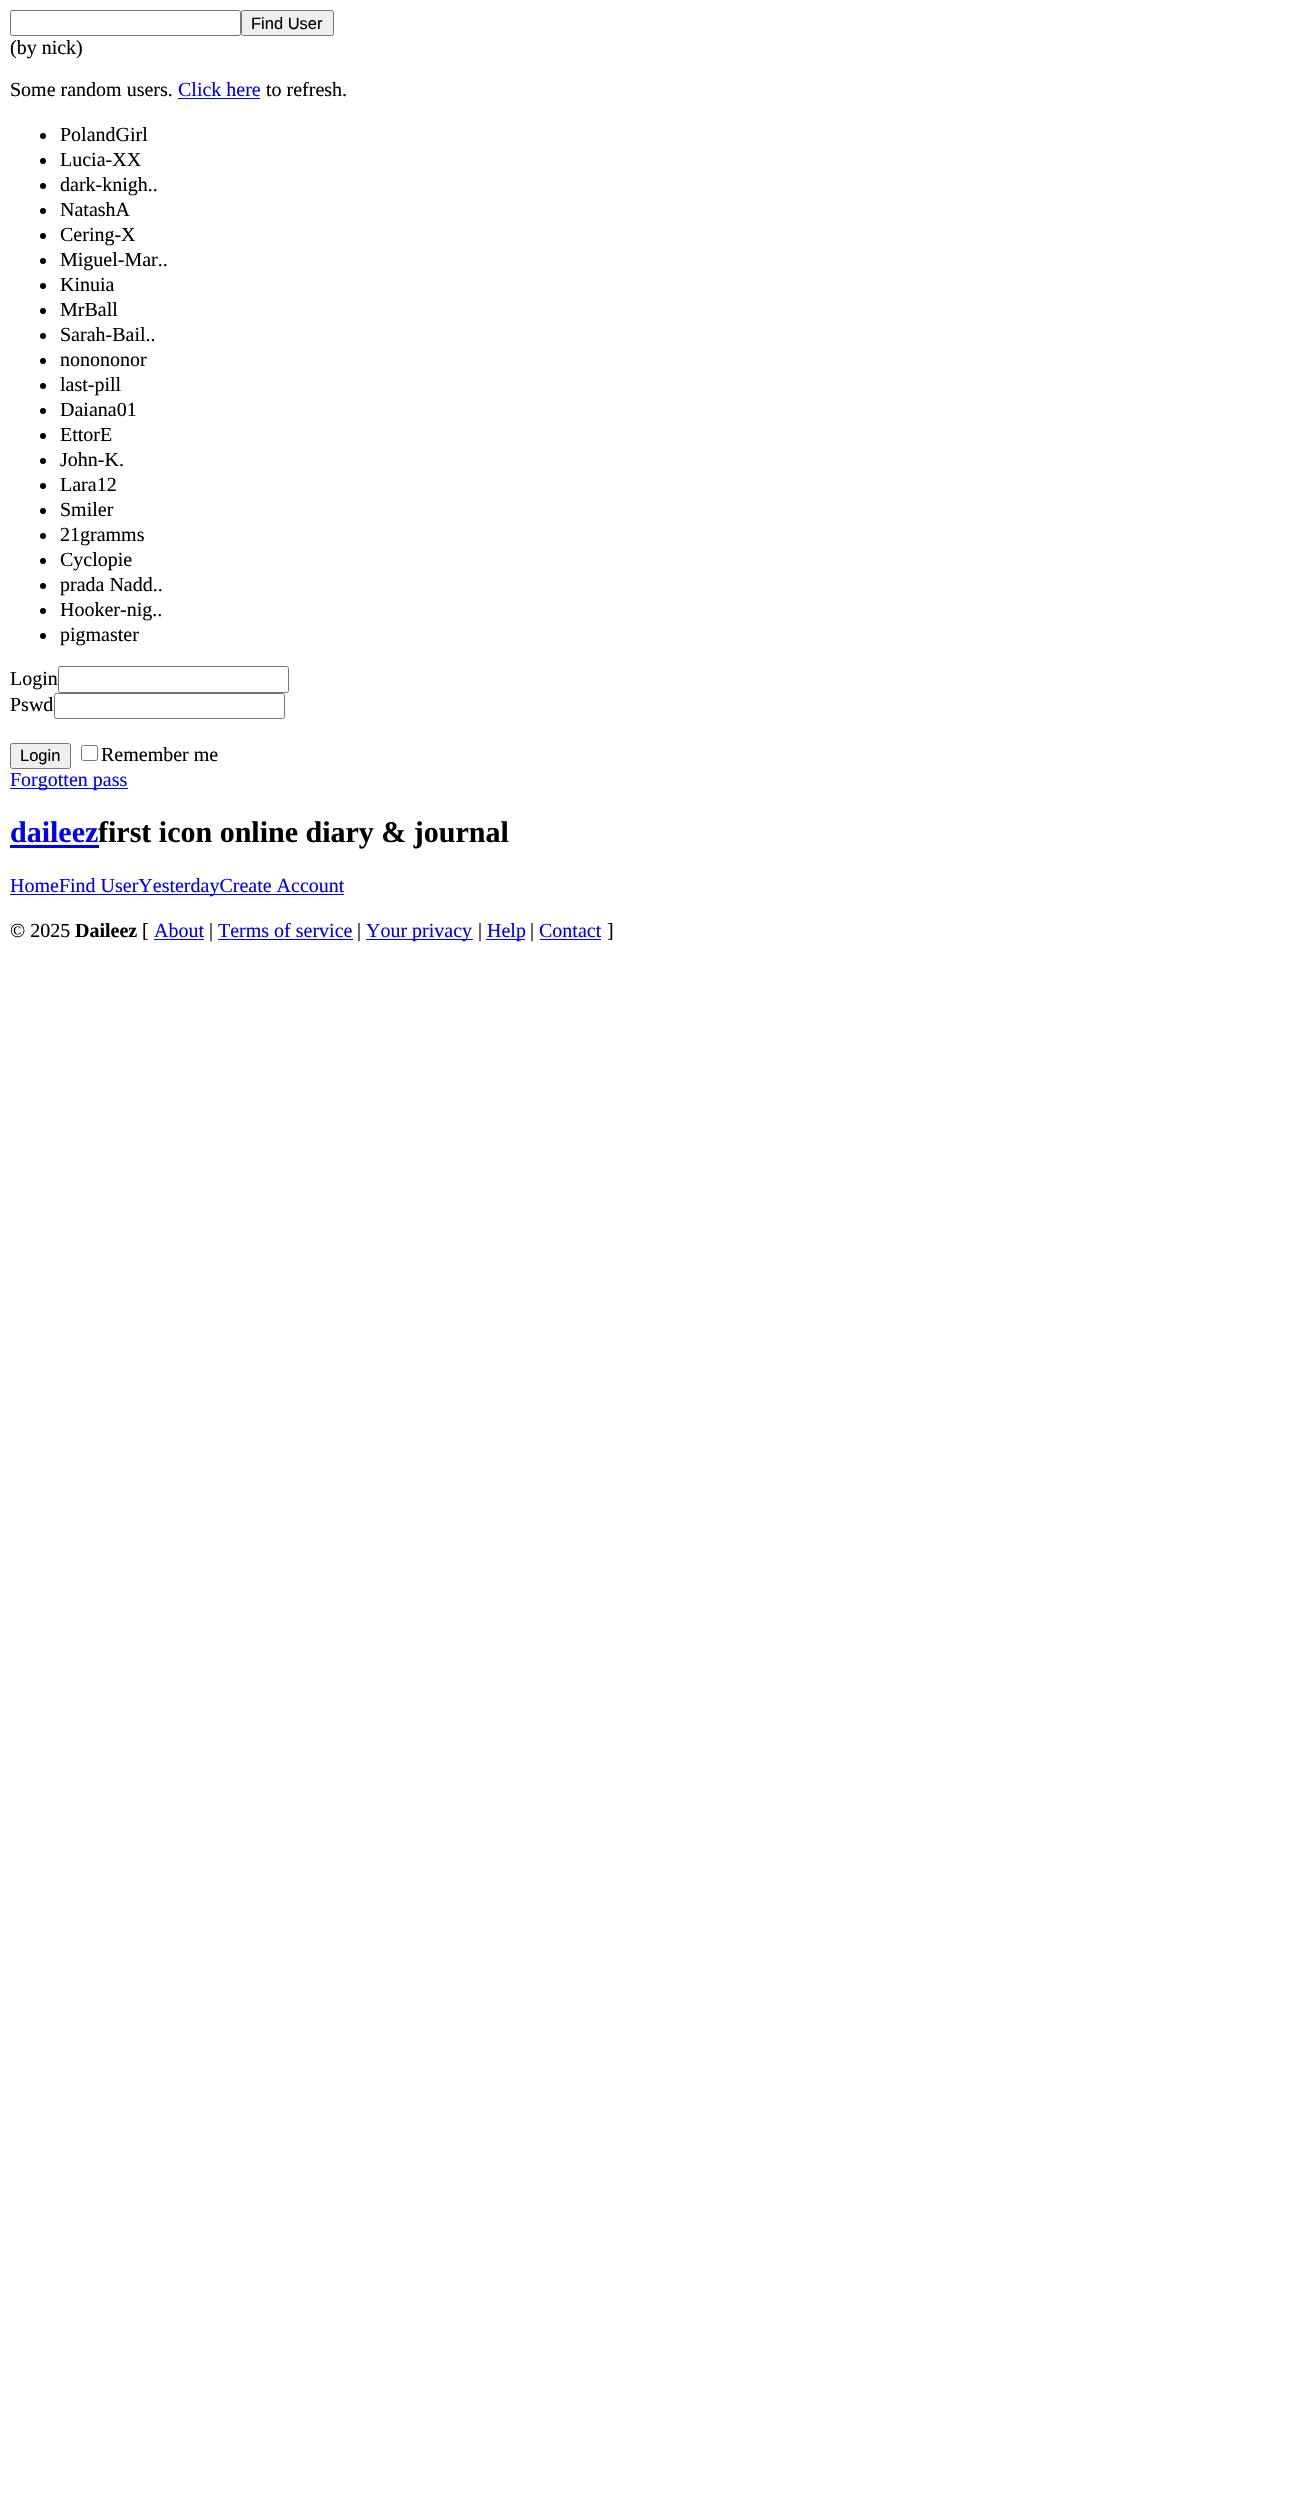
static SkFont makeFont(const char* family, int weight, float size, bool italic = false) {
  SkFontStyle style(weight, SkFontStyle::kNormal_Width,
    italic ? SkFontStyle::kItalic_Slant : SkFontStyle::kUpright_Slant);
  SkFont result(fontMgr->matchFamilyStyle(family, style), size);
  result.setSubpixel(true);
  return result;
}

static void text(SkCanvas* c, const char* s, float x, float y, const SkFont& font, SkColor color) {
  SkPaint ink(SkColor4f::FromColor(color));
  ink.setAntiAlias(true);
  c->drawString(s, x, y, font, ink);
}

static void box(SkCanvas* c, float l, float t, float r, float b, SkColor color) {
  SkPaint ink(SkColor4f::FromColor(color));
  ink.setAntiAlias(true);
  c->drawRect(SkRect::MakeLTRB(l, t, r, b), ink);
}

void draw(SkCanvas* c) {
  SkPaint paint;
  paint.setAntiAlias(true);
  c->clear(0xffffffff);
  paint.setStyle(SkPaint::kStroke_Style);
  paint.setStrokeWidth(1);
  paint.setColor(0xff767676);
  c->drawRoundRect(SkRect::MakeLTRB(10.5f, 10.5f, 240.5f, 35.5f), 2, 2, paint);
  paint.setStyle(SkPaint::kFill_Style);
  paint.setColor(0xffefefef);
  c->drawRoundRect(SkRect::MakeLTRB(241.5f, 10.5f, 333.5f, 35.5f), 2, 2, paint);
  paint.setStyle(SkPaint::kStroke_Style);
  paint.setColor(0xff767676);
  c->drawRoundRect(SkRect::MakeLTRB(241.5f, 10.5f, 333.5f, 35.5f), 2, 2, paint);
  SkFont face1 = makeFont("Liberation Sans", 400, 16.5f);
  text(c, "Find User", 251, 29, face1, 0xff000000);
  SkFont face2 = makeFont("Liberation Serif", 400, 20);
  text(c, "(by nick)", 10, 54, face2, 0xff000000);
  text(c, "Some random users.", 10, 96, face2, 0xff000000);
  text(c, "Click here", 178, 96, face2, 0xff0000ee);
  box(c, 178, 98, 260, 99, 0xff0000ee);
  text(c, "to refresh.", 266, 96, face2, 0xff000000);
  paint.setStyle(SkPaint::kFill_Style);
  paint.setColor(0xff000000);
  c->drawCircle(43, 136, 3, paint);
  text(c, "PolandGirl", 60, 141, face2, 0xff000000);
  c->drawCircle(43, 161, 3, paint);
  text(c, "Lucia-XX", 60, 166, face2, 0xff000000);
  c->drawCircle(43, 186, 3, paint);
  text(c, "dark-knigh..", 60, 191, face2, 0xff000000);
  c->drawCircle(43, 211, 3, paint);
  text(c, "NatashA", 60, 216, face2, 0xff000000);
  c->drawCircle(43, 236, 3, paint);
  text(c, "Cering-X", 60, 241, face2, 0xff000000);
  c->drawCircle(43, 261, 3, paint);
  text(c, "Miguel-Mar..", 60, 266, face2, 0xff000000);
  c->drawCircle(43, 286, 3, paint);
  text(c, "Kinuia", 60, 291, face2, 0xff000000);
  c->drawCircle(43, 311, 3, paint);
  text(c, "MrBall", 60, 316, face2, 0xff000000);
  c->drawCircle(43, 336, 3, paint);
  text(c, "Sarah-Bail..", 60, 341, face2, 0xff000000);
  c->drawCircle(43, 361, 3, paint);
  text(c, "nonononor", 60, 366, face2, 0xff000000);
  c->drawCircle(43, 386, 3, paint);
  text(c, "last-pill", 60, 391, face2, 0xff000000);
  c->drawCircle(43, 411, 3, paint);
  text(c, "Daiana01", 60, 416, face2, 0xff000000);
  c->drawCircle(43, 436, 3, paint);
  text(c, "EttorE", 60, 441, face2, 0xff000000);
  c->drawCircle(43, 461, 3, paint);
  text(c, "John-K.", 60, 466, face2, 0xff000000);
  c->drawCircle(43, 486, 3, paint);
  text(c, "Lara12", 60, 491, face2, 0xff000000);
  c->drawCircle(43, 511, 3, paint);
  text(c, "Smiler", 60, 516, face2, 0xff000000);
  c->drawCircle(43, 536, 3, paint);
  text(c, "21gramms", 60, 541, face2, 0xff000000);
  c->drawCircle(43, 561, 3, paint);
  text(c, "Cyclopie", 60, 566, face2, 0xff000000);
  c->drawCircle(43, 586, 3, paint);
  text(c, "prada Nadd..", 60, 591, face2, 0xff000000);
  c->drawCircle(43, 611, 3, paint);
  text(c, "Hooker-nig..", 60, 616, face2, 0xff000000);
  c->drawCircle(43, 636, 3, paint);
  text(c, "pigmaster", 60, 641, face2, 0xff000000);
  text(c, "Login", 10, 685, face2, 0xff000000);
  paint.setStyle(SkPaint::kStroke_Style);
  paint.setColor(0xff767676);
  c->drawRoundRect(SkRect::MakeLTRB(58.5f, 666.5f, 288.5f, 692.5f), 2, 2, paint);
  text(c, "Pswd", 10, 711, face2, 0xff000000);
  c->drawRoundRect(SkRect::MakeLTRB(54.5f, 693.5f, 284.5f, 718.5f), 2, 2, paint);
  paint.setStyle(SkPaint::kFill_Style);
  paint.setColor(0xffefefef);
  c->drawRoundRect(SkRect::MakeLTRB(10.5f, 743.5f, 70.5f, 768.5f), 2, 2, paint);
  paint.setStyle(SkPaint::kStroke_Style);
  paint.setColor(0xff767676);
  c->drawRoundRect(SkRect::MakeLTRB(10.5f, 743.5f, 70.5f, 768.5f), 2, 2, paint);
  text(c, "Login", 20, 761, face1, 0xff000000);
  c->drawRoundRect(SkRect::MakeLTRB(81.5f, 745.5f, 97.5f, 760.5f), 2, 2, paint);
  text(c, "Remember me", 101, 761, face2, 0xff000000);
  box(c, 10, 788, 128, 789, 0xff0000ee);
  text(c, "Forgotten pass", 10, 786, face2, 0xff0000ee);
  SkFont face3 = makeFont("Liberation Serif", 700, 30);
  text(c, "daileez", 10, 842, face3, 0xff0000ee);
  box(c, 10, 845, 99, 848, 0xff0000ee);
  text(c, "first icon online diary & journal", 98, 842, face3, 0xff000000);
  box(c, 10, 894, 344, 895, 0xff0000ee);
  text(c, "HomeFind UserYesterdayCreate Account", 10, 892, face2, 0xff0000ee);
  text(c, "© 2025", 10, 937, face2, 0xff000000);
  SkFont face4 = makeFont("Liberation Serif", 700, 20);
  text(c, "Daileez", 75, 937, face4, 0xff000000);
  text(c, "[", 142, 937, face2, 0xff000000);
  text(c, "About", 154, 937, face2, 0xff0000ee);
  box(c, 154, 939, 204, 940, 0xff0000ee);
  text(c, "|", 209, 937, face2, 0xff000000);
  text(c, "Terms of service", 218, 937, face2, 0xff0000ee);
  box(c, 218, 939, 353, 940, 0xff0000ee);
  text(c, "|", 357, 937, face2, 0xff000000);
  box(c, 366, 939, 473, 940, 0xff0000ee);
  text(c, "Your privacy", 366, 937, face2, 0xff0000ee);
  text(c, "|", 478, 937, face2, 0xff000000);
  box(c, 486, 939, 525, 940, 0xff0000ee);
  text(c, "Help", 487, 937, face2, 0xff0000ee);
  text(c, "|", 530, 937, face2, 0xff000000);
  text(c, "Contact", 539, 937, face2, 0xff0000ee);
  box(c, 540, 939, 601, 940, 0xff0000ee);
  text(c, "]", 607, 937, face2, 0xff000000);
}
